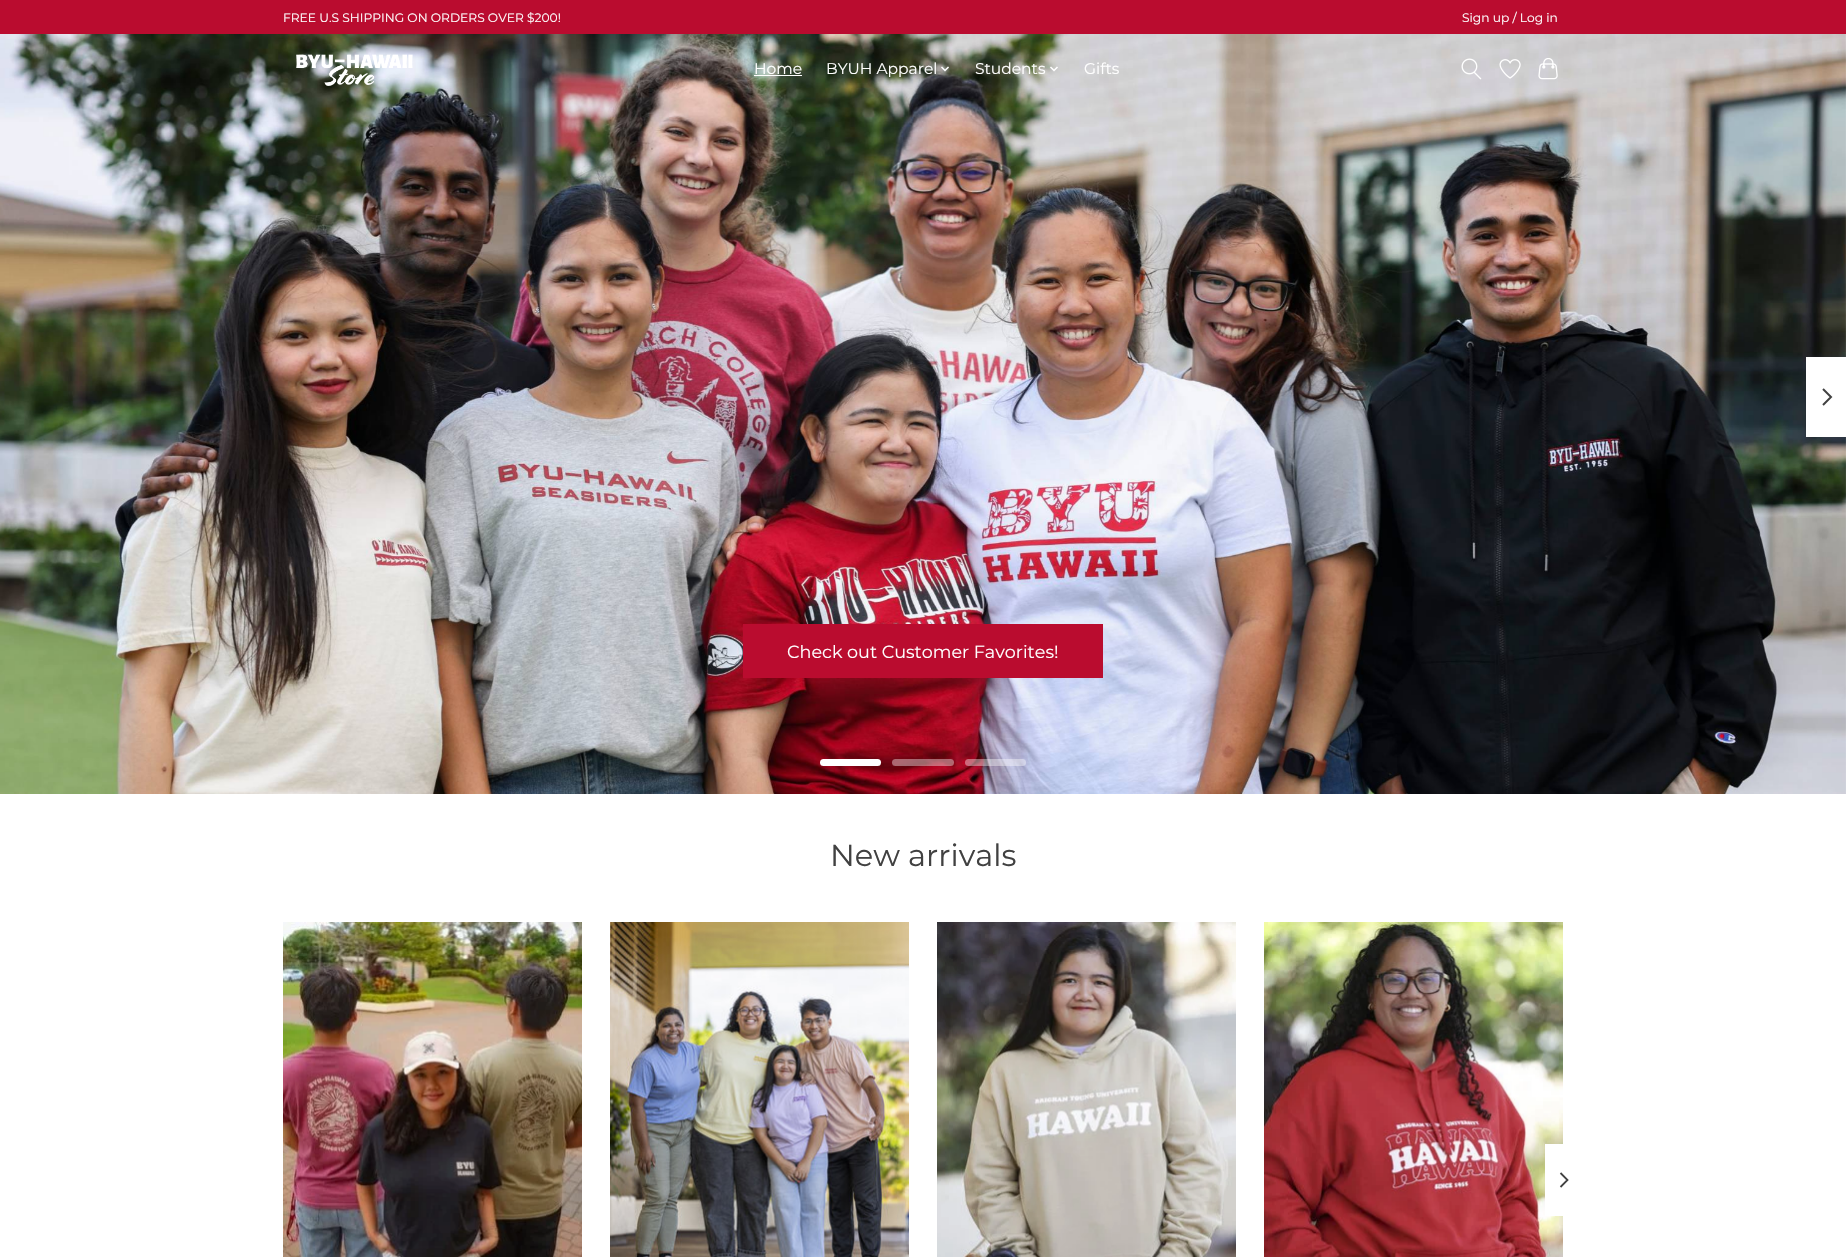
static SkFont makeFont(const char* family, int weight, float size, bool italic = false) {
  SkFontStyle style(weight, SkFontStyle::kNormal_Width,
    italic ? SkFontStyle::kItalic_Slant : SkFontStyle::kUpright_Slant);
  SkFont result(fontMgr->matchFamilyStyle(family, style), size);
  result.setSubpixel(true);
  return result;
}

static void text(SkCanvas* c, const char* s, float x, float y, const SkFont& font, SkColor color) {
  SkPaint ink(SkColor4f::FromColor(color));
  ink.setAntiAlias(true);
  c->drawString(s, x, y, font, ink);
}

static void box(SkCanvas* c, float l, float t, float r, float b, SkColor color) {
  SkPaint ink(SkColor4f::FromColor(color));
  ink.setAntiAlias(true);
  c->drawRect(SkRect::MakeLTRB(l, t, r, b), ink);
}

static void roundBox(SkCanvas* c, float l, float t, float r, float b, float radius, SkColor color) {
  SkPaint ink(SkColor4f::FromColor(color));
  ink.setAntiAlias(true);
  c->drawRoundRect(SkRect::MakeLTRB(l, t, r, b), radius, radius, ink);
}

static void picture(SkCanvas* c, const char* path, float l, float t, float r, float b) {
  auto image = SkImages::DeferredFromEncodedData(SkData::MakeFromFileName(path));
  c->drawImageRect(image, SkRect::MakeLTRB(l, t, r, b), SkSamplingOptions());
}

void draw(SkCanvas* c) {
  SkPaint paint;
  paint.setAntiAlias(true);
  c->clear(0xffffffff);
  box(c, 0, 0, 1846, 34, 0xffba0c2f);
  SkFont face1 = makeFont("Montserrat", 400, 12.25f);
  text(c, "FREE U.S SHIPPING ON ORDERS OVER $200!", 283, 22, face1, 0xffffffff);
  text(c, "Sign up / Log in", 1462, 22, face1, 0xffffffff);
  picture(c, "img_07.png", 0, 34, 1846, 794);
  picture(c, "img_01.png", 296, 54, 413, 86);
  SkFont face2 = makeFont("Montserrat", 400, 15.5f);
  text(c, "Home", 754, 74, face2, 0xffffffff);
  box(c, 754, 75, 802, 76, 0xffffffff);
  text(c, "BYUH Apparel", 826, 74, face2, 0xffffffff);
  picture(c, "img_02.png", 941, 66, 949, 72);
  text(c, "Students", 975, 74, face2, 0xffffffff);
  picture(c, "img_03.png", 1050, 66, 1058, 72);
  text(c, "Gifts", 1084, 74, face2, 0xffffffff);
  picture(c, "img_04.png", 1461, 58, 1482, 80);
  picture(c, "img_05.png", 1499, 59, 1521, 79);
  picture(c, "img_06.png", 1538, 58, 1558, 80);
  box(c, 1806, 357, 1846, 437, 0xffffffff);
  paint.setStyle(SkPaint::kStroke_Style);
  paint.setStrokeWidth(2);
  paint.setColor(0xff414141);
  c->drawPath(SkPathBuilder().moveTo(1823, 405).lineTo(1831, 397).lineTo(1823, 389).detach(), paint);
  box(c, 743, 624, 1103, 678, 0xffba0c2f);
  SkFont face3 = makeFont("Montserrat", 400, 17.6f);
  text(c, "Check out Customer Favorites!", 787, 658, face3, 0xffffffff);
  roundBox(c, 820, 759, 881, 766, 3.5f, 0xffffffff);
  roundBox(c, 892, 759, 954, 766, 3.5f, 0x66ffffff);
  roundBox(c, 965, 759, 1026, 766, 3.5f, 0x66ffffff);
  SkFont face4 = makeFont("Montserrat", 400, 30.5f);
  text(c, "New arrivals", 830, 866, face4, 0xff414141);
  picture(c, "img_08.png", 283, 922, 582, 1257);
  picture(c, "img_09.png", 610, 922, 909, 1257);
  picture(c, "img_10.png", 937, 922, 1236, 1257);
  picture(c, "img_11.png", 1264, 922, 1563, 1257);
  box(c, 1545, 1144, 1563, 1216, 0xffffffff);
  paint.setStrokeWidth(1.8f);
  c->drawPath(SkPathBuilder().moveTo(1560.5f, 1187).lineTo(1567.5f, 1180).lineTo(1560.5f, 1173).detach(), paint);
}
